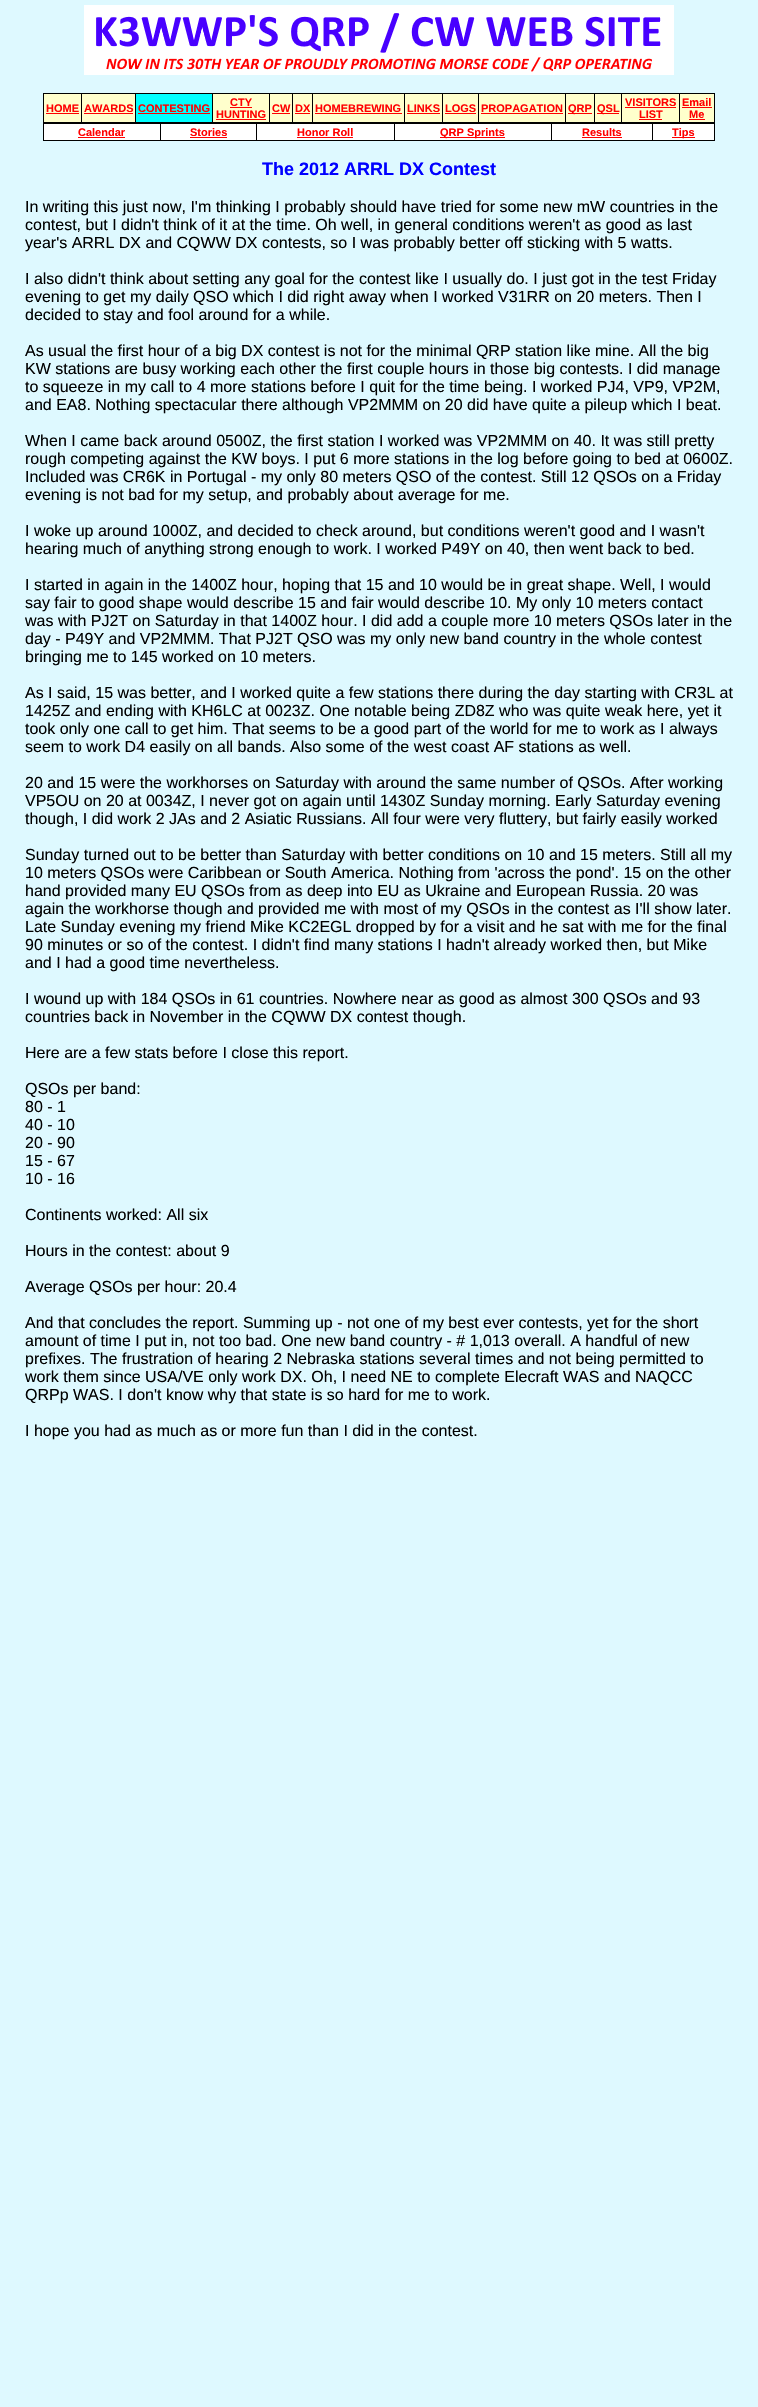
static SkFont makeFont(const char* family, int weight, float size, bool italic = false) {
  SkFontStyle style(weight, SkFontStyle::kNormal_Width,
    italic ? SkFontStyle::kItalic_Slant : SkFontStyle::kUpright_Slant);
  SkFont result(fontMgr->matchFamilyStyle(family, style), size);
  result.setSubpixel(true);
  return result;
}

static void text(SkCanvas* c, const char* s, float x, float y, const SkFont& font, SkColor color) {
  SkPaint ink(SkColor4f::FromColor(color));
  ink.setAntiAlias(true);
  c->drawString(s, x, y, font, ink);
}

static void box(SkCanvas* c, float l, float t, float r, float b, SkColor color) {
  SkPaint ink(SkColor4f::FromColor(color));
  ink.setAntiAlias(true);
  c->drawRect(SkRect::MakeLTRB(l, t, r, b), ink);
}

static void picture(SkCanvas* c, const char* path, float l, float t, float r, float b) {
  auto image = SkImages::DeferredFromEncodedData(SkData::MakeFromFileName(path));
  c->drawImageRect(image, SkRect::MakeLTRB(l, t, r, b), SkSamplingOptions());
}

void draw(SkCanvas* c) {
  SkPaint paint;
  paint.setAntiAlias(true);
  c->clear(0xffdef9ff);
  picture(c, "img_01.png", 84, 5, 674, 75);
  box(c, 44, 94, 714, 122, 0xffffffcc);
  box(c, 43, 93, 715, 94, 0xff000000);
  box(c, 714, 93, 715, 123, 0xff000000);
  box(c, 43, 122, 715, 124, 0xff000000);
  box(c, 43, 93, 44, 123, 0xff000000);
  SkFont face1 = makeFont("Liberation Sans", 700, 11);
  text(c, "HOME", 46, 112, face1, 0xffff0000);
  box(c, 46, 113, 79, 114, 0xffff0000);
  box(c, 81, 93, 82, 123, 0xff000000);
  text(c, "AWARDS", 84, 112, face1, 0xffff0000);
  box(c, 84, 113, 133, 114, 0xffff0000);
  box(c, 136, 94, 212, 122, 0xff00ffff);
  box(c, 135, 93, 136, 123, 0xff000000);
  text(c, "CONTESTING", 138, 112, face1, 0xffff0000);
  box(c, 138, 113, 210, 114, 0xffff0000);
  box(c, 212, 93, 213, 123, 0xff000000);
  text(c, "CTY", 230, 106, face1, 0xffff0000);
  box(c, 230, 107, 252, 108, 0xffff0000);
  text(c, "HUNTING", 216, 118, face1, 0xffff0000);
  box(c, 216, 119, 266, 120, 0xffff0000);
  box(c, 269, 93, 270, 123, 0xff000000);
  text(c, "CW", 272, 112, face1, 0xffff0000);
  box(c, 272, 113, 290, 114, 0xffff0000);
  box(c, 292, 93, 293, 123, 0xff000000);
  text(c, "DX", 295, 112, face1, 0xffff0000);
  box(c, 295, 113, 310, 114, 0xffff0000);
  box(c, 312, 93, 313, 123, 0xff000000);
  text(c, "HOMEBREWING", 315, 112, face1, 0xffff0000);
  box(c, 315, 113, 402, 114, 0xffff0000);
  box(c, 404, 93, 405, 123, 0xff000000);
  text(c, "LINKS", 407, 112, face1, 0xffff0000);
  box(c, 407, 113, 440, 114, 0xffff0000);
  box(c, 442, 93, 443, 123, 0xff000000);
  text(c, "LOGS", 445, 112, face1, 0xffff0000);
  box(c, 445, 113, 476, 114, 0xffff0000);
  box(c, 478, 93, 479, 123, 0xff000000);
  text(c, "PROPAGATION", 481, 112, face1, 0xffff0000);
  box(c, 481, 113, 563, 114, 0xffff0000);
  box(c, 565, 93, 566, 123, 0xff000000);
  box(c, 568, 113, 592, 114, 0xffff0000);
  text(c, "QRP", 568, 112, face1, 0xffff0000);
  box(c, 594, 93, 595, 123, 0xff000000);
  box(c, 597, 113, 619, 114, 0xffff0000);
  text(c, "QSL", 597, 112, face1, 0xffff0000);
  box(c, 621, 93, 622, 123, 0xff000000);
  text(c, "VISITORS", 625, 106, face1, 0xffff0000);
  box(c, 625, 107, 676, 108, 0xffff0000);
  text(c, "LIST", 639, 118, face1, 0xffff0000);
  box(c, 639, 119, 662, 120, 0xffff0000);
  box(c, 679, 93, 680, 123, 0xff000000);
  text(c, "Email", 682, 106, face1, 0xffff0000);
  box(c, 682, 107, 712, 108, 0xffff0000);
  text(c, "Me", 689, 118, face1, 0xffff0000);
  box(c, 689, 119, 705, 120, 0xffff0000);
  box(c, 714, 123, 715, 141, 0xff000000);
  box(c, 43, 140, 715, 141, 0xff000000);
  box(c, 43, 123, 44, 141, 0xff000000);
  box(c, 44, 124, 714, 140, 0xffffffff);
  text(c, "Calendar", 78, 136, face1, 0xffff0000);
  box(c, 78, 137, 125, 138, 0xffff0000);
  box(c, 160, 123, 161, 141, 0xff000000);
  text(c, "Stories", 190, 136, face1, 0xffff0000);
  box(c, 190, 137, 227, 138, 0xffff0000);
  box(c, 256, 123, 257, 141, 0xff000000);
  text(c, "Honor Roll", 297, 136, face1, 0xffff0000);
  box(c, 297, 137, 353, 138, 0xffff0000);
  box(c, 394, 123, 395, 141, 0xff000000);
  box(c, 440, 137, 505, 138, 0xffff0000);
  text(c, "QRP Sprints", 440, 136, face1, 0xffff0000);
  box(c, 551, 123, 552, 141, 0xff000000);
  text(c, "Results", 582, 136, face1, 0xffff0000);
  box(c, 582, 137, 622, 138, 0xffff0000);
  box(c, 652, 123, 653, 141, 0xff000000);
  box(c, 672, 137, 695, 138, 0xffff0000);
  text(c, "Tips", 672, 136, face1, 0xffff0000);
  SkFont face2 = makeFont("Liberation Sans", 700, 18);
  text(c, "The 2012 ARRL DX Contest", 262, 175, face2, 0xff0000ff);
  SkFont face3 = makeFont("Liberation Sans", 400, 16);
  text(c, "In writing this just now, I'm thinking I probably should have tried for some new mW countries in the", 25, 212, face3, 0xff000000);
  text(c, "contest, but I didn't think of it at the time. Oh well, in general conditions weren't as good as last", 25, 230, face3, 0xff000000);
  text(c, "year's ARRL DX and CQWW DX contests, so I was probably better off sticking with 5 watts.", 25, 248, face3, 0xff000000);
  text(c, "I also didn't think about setting any goal for the contest like I usually do. I just got in the test Friday", 25, 284, face3, 0xff000000);
  text(c, "evening to get my daily QSO which I did right away when I worked V31RR on 20 meters. Then I", 25, 302, face3, 0xff000000);
  text(c, "decided to stay and fool around for a while.", 25, 320, face3, 0xff000000);
  text(c, "As usual the first hour of a big DX contest is not for the minimal QRP station like mine. All the big", 25, 356, face3, 0xff000000);
  text(c, "KW stations are busy working each other the first couple hours in those big contests. I did manage", 25, 374, face3, 0xff000000);
  text(c, "to squeeze in my call to 4 more stations before I quit for the time being. I worked PJ4, VP9, VP2M,", 25, 392, face3, 0xff000000);
  text(c, "and EA8. Nothing spectacular there although VP2MMM on 20 did have quite a pileup which I beat.", 25, 410, face3, 0xff000000);
  text(c, "When I came back around 0500Z, the first station I worked was VP2MMM on 40. It was still pretty", 25, 446, face3, 0xff000000);
  text(c, "rough competing against the KW boys. I put 6 more stations in the log before going to bed at 0600Z.", 25, 464, face3, 0xff000000);
  text(c, "Included was CR6K in Portugal - my only 80 meters QSO of the contest. Still 12 QSOs on a Friday", 25, 482, face3, 0xff000000);
  text(c, "evening is not bad for my setup, and probably about average for me.", 25, 500, face3, 0xff000000);
  text(c, "I woke up around 1000Z, and decided to check around, but conditions weren't good and I wasn't", 25, 536, face3, 0xff000000);
  text(c, "hearing much of anything strong enough to work. I worked P49Y on 40, then went back to bed.", 25, 554, face3, 0xff000000);
  text(c, "I started in again in the 1400Z hour, hoping that 15 and 10 would be in great shape. Well, I would", 25, 590, face3, 0xff000000);
  text(c, "say fair to good shape would describe 15 and fair would describe 10. My only 10 meters contact", 25, 608, face3, 0xff000000);
  text(c, "was with PJ2T on Saturday in that 1400Z hour. I did add a couple more 10 meters QSOs later in the", 25, 626, face3, 0xff000000);
  text(c, "day - P49Y and VP2MMM. That PJ2T QSO was my only new band country in the whole contest", 25, 644, face3, 0xff000000);
  text(c, "bringing me to 145 worked on 10 meters.", 25, 662, face3, 0xff000000);
  text(c, "As I said, 15 was better, and I worked quite a few stations there during the day starting with CR3L at", 25, 698, face3, 0xff000000);
  text(c, "1425Z and ending with KH6LC at 0023Z. One notable being ZD8Z who was quite weak here, yet it", 25, 716, face3, 0xff000000);
  text(c, "took only one call to get him. That seems to be a good part of the world for me to work as I always", 25, 734, face3, 0xff000000);
  text(c, "seem to work D4 easily on all bands. Also some of the west coast AF stations as well.", 25, 752, face3, 0xff000000);
  text(c, "20 and 15 were the workhorses on Saturday with around the same number of QSOs. After working", 25, 788, face3, 0xff000000);
  text(c, "VP5OU on 20 at 0034Z, I never got on again until 1430Z Sunday morning. Early Saturday evening", 25, 806, face3, 0xff000000);
  text(c, "though, I did work 2 JAs and 2 Asiatic Russians. All four were very fluttery, but fairly easily worked", 25, 824, face3, 0xff000000);
  text(c, "Sunday turned out to be better than Saturday with better conditions on 10 and 15 meters. Still all my", 25, 860, face3, 0xff000000);
  text(c, "10 meters QSOs were Caribbean or South America. Nothing from 'across the pond'. 15 on the other", 25, 878, face3, 0xff000000);
  text(c, "hand provided many EU QSOs from as deep into EU as Ukraine and European Russia. 20 was", 25, 896, face3, 0xff000000);
  text(c, "again the workhorse though and provided me with most of my QSOs in the contest as I'll show later.", 25, 914, face3, 0xff000000);
  text(c, "Late Sunday evening my friend Mike KC2EGL dropped by for a visit and he sat with me for the final", 25, 932, face3, 0xff000000);
  text(c, "90 minutes or so of the contest. I didn't find many stations I hadn't already worked then, but Mike", 25, 950, face3, 0xff000000);
  text(c, "and I had a good time nevertheless.", 25, 968, face3, 0xff000000);
  text(c, "I wound up with 184 QSOs in 61 countries. Nowhere near as good as almost 300 QSOs and 93", 25, 1004, face3, 0xff000000);
  text(c, "countries back in November in the CQWW DX contest though.", 25, 1022, face3, 0xff000000);
  text(c, "Here are a few stats before I close this report.", 25, 1058, face3, 0xff000000);
  text(c, "QSOs per band:", 25, 1094, face3, 0xff000000);
  text(c, "80 - 1", 25, 1112, face3, 0xff000000);
  text(c, "40 - 10", 25, 1130, face3, 0xff000000);
  text(c, "20 - 90", 25, 1148, face3, 0xff000000);
  text(c, "15 - 67", 25, 1166, face3, 0xff000000);
  text(c, "10 - 16", 25, 1184, face3, 0xff000000);
  text(c, "Continents worked: All six", 25, 1220, face3, 0xff000000);
  text(c, "Hours in the contest: about 9", 25, 1256, face3, 0xff000000);
  text(c, "Average QSOs per hour: 20.4", 25, 1292, face3, 0xff000000);
  text(c, "And that concludes the report. Summing up - not one of my best ever contests, yet for the short", 25, 1328, face3, 0xff000000);
  text(c, "amount of time I put in, not too bad. One new band country - # 1,013 overall. A handful of new", 25, 1346, face3, 0xff000000);
  text(c, "prefixes. The frustration of hearing 2 Nebraska stations several times and not being permitted to", 25, 1364, face3, 0xff000000);
  text(c, "work them since USA/VE only work DX. Oh, I need NE to complete Elecraft WAS and NAQCC", 25, 1382, face3, 0xff000000);
  text(c, "QRPp WAS. I don't know why that state is so hard for me to work.", 25, 1400, face3, 0xff000000);
  text(c, "I hope you had as much as or more fun than I did in the contest.", 25, 1436, face3, 0xff000000);
}
